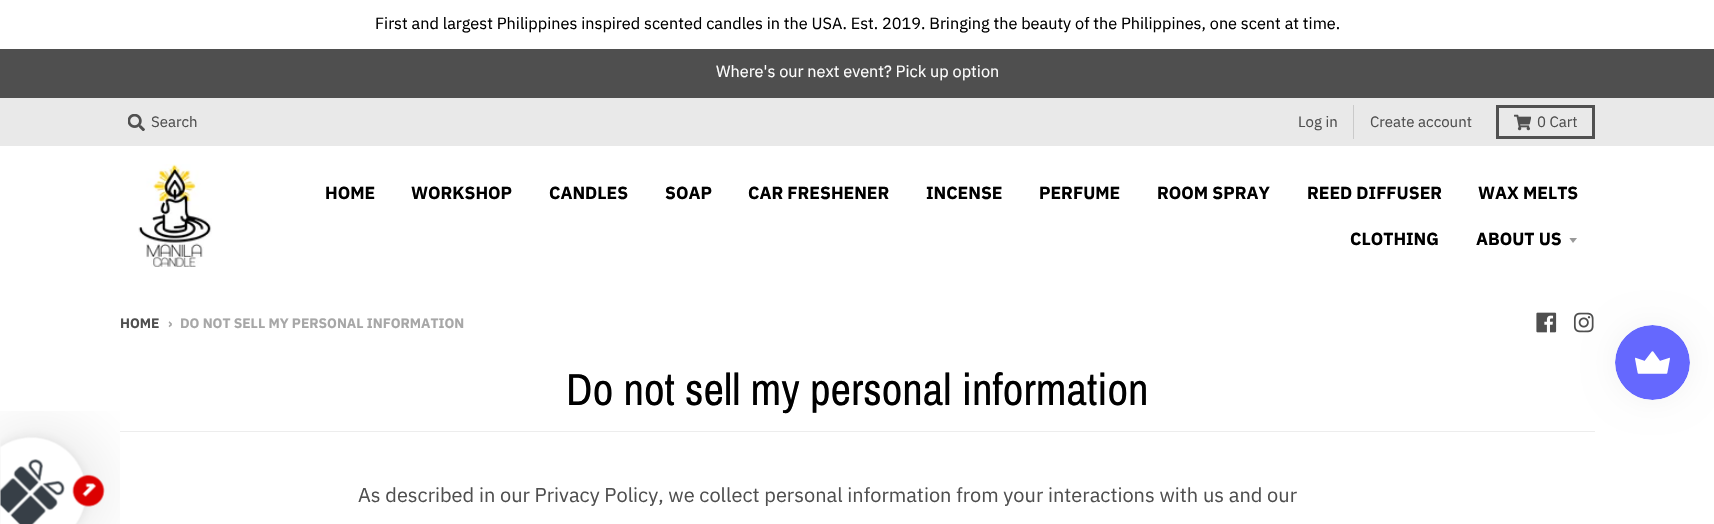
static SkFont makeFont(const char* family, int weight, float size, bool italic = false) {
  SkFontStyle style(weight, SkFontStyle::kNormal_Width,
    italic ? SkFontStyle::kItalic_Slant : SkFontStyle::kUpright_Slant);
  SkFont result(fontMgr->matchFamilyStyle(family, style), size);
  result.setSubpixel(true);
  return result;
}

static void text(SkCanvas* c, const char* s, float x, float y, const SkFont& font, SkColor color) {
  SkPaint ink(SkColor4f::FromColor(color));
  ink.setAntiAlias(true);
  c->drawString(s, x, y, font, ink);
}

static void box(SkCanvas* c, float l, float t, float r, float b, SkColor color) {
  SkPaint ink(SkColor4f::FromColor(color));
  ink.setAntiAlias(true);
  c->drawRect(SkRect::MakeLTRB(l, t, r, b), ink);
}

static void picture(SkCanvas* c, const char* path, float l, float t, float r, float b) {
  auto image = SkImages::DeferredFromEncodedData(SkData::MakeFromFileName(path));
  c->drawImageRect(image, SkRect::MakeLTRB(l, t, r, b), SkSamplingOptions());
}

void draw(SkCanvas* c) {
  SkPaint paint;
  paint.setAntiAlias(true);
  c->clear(0xffffffff);
  SkFont face1 = makeFont("IBM Plex Sans", 400, 16.25f);
  text(c, "First and largest Philippines inspired scented candles in the USA. Est. 2019. Bringing the beauty of the Philippines, one scent at time.", 375, 29, face1, 0xff000000);
  box(c, 0, 49, 1714, 98, 0xff4f4f4f);
  text(c, "Where's our next event? Pick up option", 716, 77, face1, 0xffffffff);
  box(c, 0, 98, 1714, 146, 0xffe9e9e9);
  picture(c, "img_01.png", 128, 114, 145, 131);
  SkFont face2 = makeFont("IBM Plex Sans", 400, 15);
  text(c, "Search", 151, 127, face2, 0xff4f4f4f);
  box(c, 1353, 105, 1354, 139, 0xffcacaca);
  text(c, "Log in", 1298, 127, face2, 0xff4f4f4f);
  text(c, "Create account", 1370, 127, face2, 0xff4f4f4f);
  paint.setStyle(SkPaint::kStroke_Style);
  paint.setStrokeWidth(3);
  paint.setColor(0xff505050);
  c->drawRect(SkRect::MakeLTRB(1497.5f, 106.5f, 1593.5f, 137.5f), paint);
  picture(c, "img_02.png", 1514, 114, 1531, 131);
  text(c, "0 Cart", 1537, 127, face2, 0xff4f4f4f);
  picture(c, "img_03.png", 138, 164, 212, 267);
  SkFont face3 = makeFont("IBM Plex Sans", 700, 17.5f);
  text(c, "HOME", 325, 199, face3, 0xff000000);
  text(c, "WORKSHOP", 411, 199, face3, 0xff000000);
  text(c, "CANDLES", 549, 199, face3, 0xff000000);
  text(c, "SOAP", 665, 199, face3, 0xff000000);
  text(c, "CAR FRESHENER", 748, 199, face3, 0xff000000);
  text(c, "INCENSE", 926, 199, face3, 0xff000000);
  text(c, "PERFUME", 1039, 199, face3, 0xff000000);
  text(c, "ROOM SPRAY", 1157, 199, face3, 0xff000000);
  text(c, "REED DIFFUSER", 1307, 199, face3, 0xff000000);
  text(c, "WAX MELTS", 1478, 199, face3, 0xff000000);
  text(c, "CLOTHING", 1350, 245, face3, 0xff000000);
  text(c, "ABOUT US", 1476, 245, face3, 0xff000000);
  c->save();
  c->clipRect(SkRect::MakeLTRB(1569, 238, 1579, 244));
  paint.setStyle(SkPaint::kFill_Style);
  paint.setColor(0xff999999);
  c->drawPath(SkPathBuilder().moveTo(1569, 237.5f).lineTo(1573, 243).lineTo(1577.5f, 237.5f).close().detach(), paint);
  c->restore();
  SkFont face4 = makeFont("IBM Plex Sans", 700, 13.75f);
  text(c, "HOME", 120, 328, face4, 0xff4f4f4f);
  text(c, "›", 168, 328, face4, 0xffa7a7a7);
  text(c, "DO NOT SELL MY PERSONAL INFORMATION", 180, 328, face4, 0xffa7a7a7);
  picture(c, "img_04.png", 1536, 312, 1557, 333);
  picture(c, "img_05.png", 1573, 312, 1594, 333);
  box(c, 120, 431, 1595, 432, 0xffededed);
  SkFont face5 = makeFont("Archivo Narrow", 400, 45);
  text(c, "Do not sell my personal information", 566, 405, face5, 0xff000000);
  SkFont face6 = makeFont("IBM Plex Sans", 400, 20);
  text(c, "As described in our Privacy Policy, we collect personal information from your interactions with us and our", 358, 502, face6, 0xff4f4f4f);
  paint.setColor(0x0d000000);
  paint.setMaskFilter(SkMaskFilter::MakeBlur(kNormal_SkBlurStyle, 15.5f));
  c->drawRoundRect(SkRect::MakeLTRB(1615, 325, 1690, 400), 37.5f, 37.5f, paint);
  paint.setMaskFilter(nullptr);
  picture(c, "img_06.png", 1615, 325, 1690, 400);
  picture(c, "img_07.png", 0, 411, 120, 524);
}
